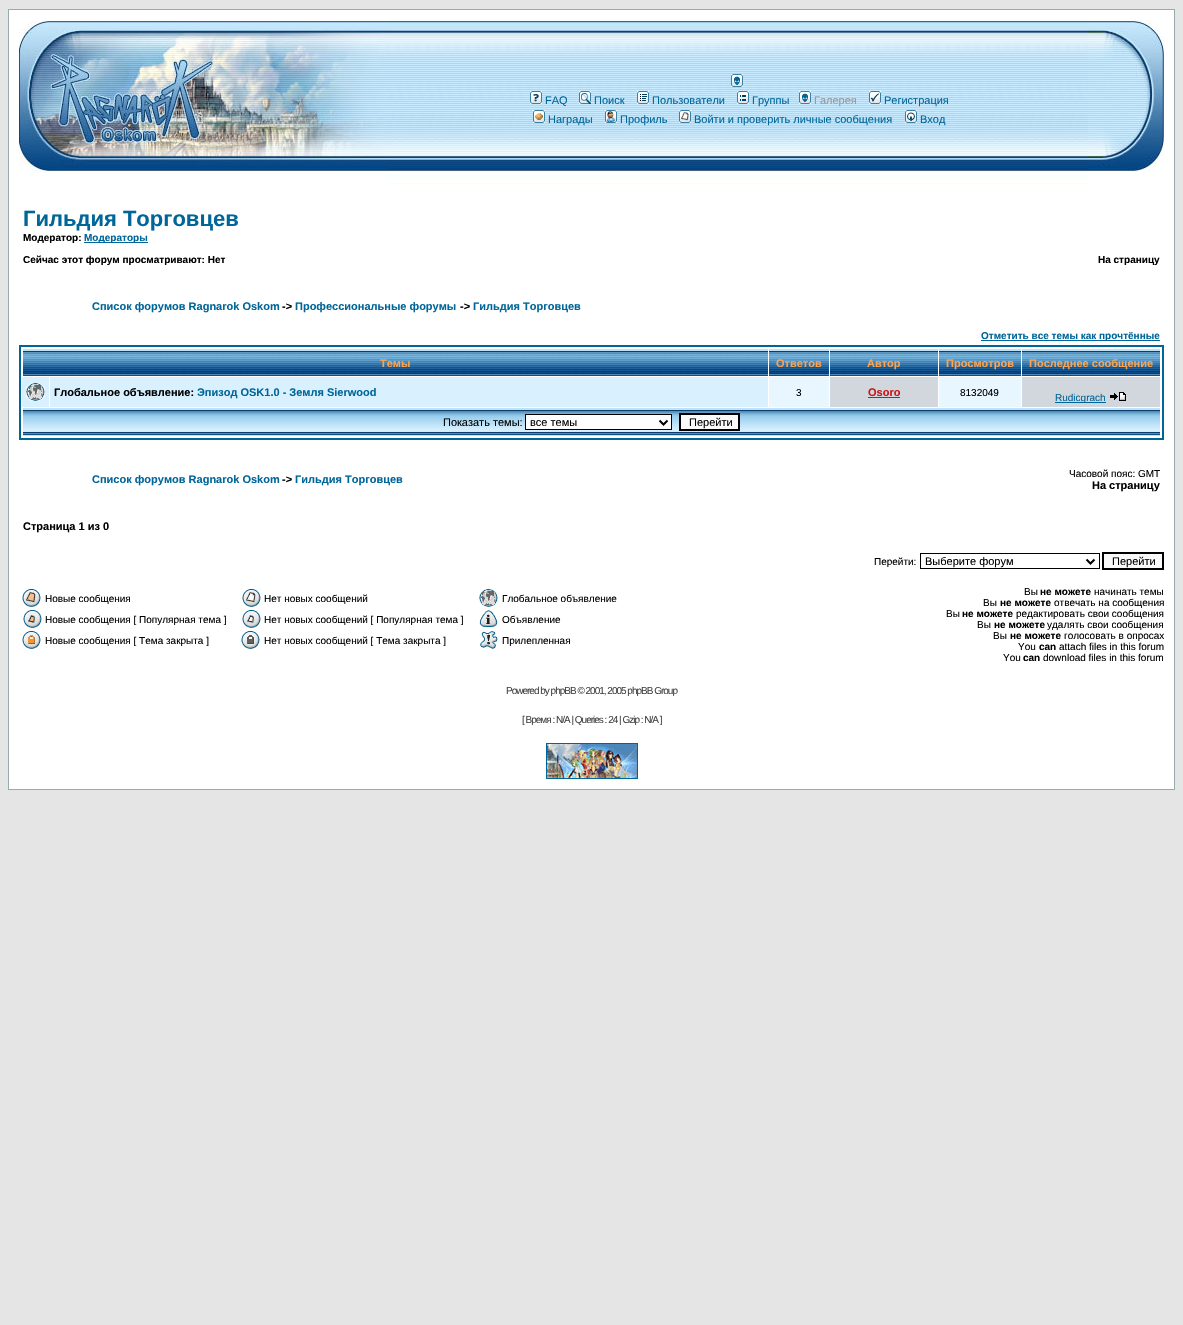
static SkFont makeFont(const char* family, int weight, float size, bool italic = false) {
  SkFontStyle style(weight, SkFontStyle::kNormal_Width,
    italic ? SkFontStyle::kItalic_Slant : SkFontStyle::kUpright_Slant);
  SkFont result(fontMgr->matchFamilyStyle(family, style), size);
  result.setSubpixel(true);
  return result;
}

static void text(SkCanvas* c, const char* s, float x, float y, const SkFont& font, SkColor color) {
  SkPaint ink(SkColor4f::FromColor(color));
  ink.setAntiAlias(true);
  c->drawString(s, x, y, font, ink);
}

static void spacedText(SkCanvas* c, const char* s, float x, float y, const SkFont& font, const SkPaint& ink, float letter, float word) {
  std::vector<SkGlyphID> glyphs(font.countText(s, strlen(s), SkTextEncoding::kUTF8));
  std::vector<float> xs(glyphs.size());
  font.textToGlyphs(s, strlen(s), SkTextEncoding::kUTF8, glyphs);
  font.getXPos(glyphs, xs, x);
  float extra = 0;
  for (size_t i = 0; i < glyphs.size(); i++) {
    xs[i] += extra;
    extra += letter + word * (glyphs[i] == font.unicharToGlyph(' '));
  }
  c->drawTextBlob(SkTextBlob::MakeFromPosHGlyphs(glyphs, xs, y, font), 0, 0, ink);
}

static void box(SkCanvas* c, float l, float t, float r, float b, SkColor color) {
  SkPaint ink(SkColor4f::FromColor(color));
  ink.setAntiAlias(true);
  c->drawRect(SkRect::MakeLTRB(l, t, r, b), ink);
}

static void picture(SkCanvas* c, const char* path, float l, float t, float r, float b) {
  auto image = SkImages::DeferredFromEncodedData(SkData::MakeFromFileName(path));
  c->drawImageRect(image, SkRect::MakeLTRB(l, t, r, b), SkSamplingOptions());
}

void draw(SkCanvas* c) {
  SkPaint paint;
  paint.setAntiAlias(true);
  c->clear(0xffe5e5e5);
  paint.setColor(0xffffffff);
  c->drawRect(SkRect::MakeLTRB(8.5f, 9.5f, 1174.5f, 789.5f), paint);
  paint.setStyle(SkPaint::kStroke_Style);
  paint.setStrokeWidth(1);
  paint.setColor(0xff98aab1);
  c->drawRect(SkRect::MakeLTRB(8.5f, 9.5f, 1174.5f, 789.5f), paint);
  picture(c, "img_01.png", 19, 21, 387, 173);
  picture(c, "img_02.png", 387, 20, 1088, 184);
  picture(c, "img_03.png", 731, 74, 743, 87);
  picture(c, "img_04.png", 530, 91, 542, 104);
  SkFont face1 = makeFont("Liberation Sans", 400, 11);
  text(c, "FAQ", 545, 104, face1, 0xff006699);
  picture(c, "img_05.png", 579, 91, 591, 104);
  text(c, "Поиск", 594, 104, face1, 0xff006699);
  picture(c, "img_06.png", 637, 91, 649, 104);
  text(c, "Пользователи", 652, 104, face1, 0xff006699);
  picture(c, "img_07.png", 737, 91, 749, 104);
  text(c, "Группы", 752, 104, face1, 0xff006699);
  picture(c, "img_03.png", 799, 91, 811, 104);
  text(c, "Галерея", 814, 104, face1, 0xff989898);
  picture(c, "img_08.png", 869, 91, 881, 104);
  text(c, "Регистрация", 884, 104, face1, 0xff006699);
  picture(c, "img_09.png", 533, 110, 545, 123);
  text(c, "Награды", 548, 123, face1, 0xff006699);
  picture(c, "img_10.png", 605, 110, 617, 123);
  text(c, "Профиль", 620, 123, face1, 0xff006699);
  picture(c, "img_11.png", 679, 110, 691, 123);
  text(c, "Войти и проверить личные сообщения", 694, 123, face1, 0xff006699);
  picture(c, "img_12.png", 905, 110, 917, 123);
  text(c, "Вход", 920, 123, face1, 0xff006699);
  picture(c, "img_13.png", 1088, 21, 1164, 173);
  SkFont face2 = makeFont("Liberation Sans", 700, 22);
  text(c, "Гильдия Торговцев", 23, 226, face2, 0xff006699);
  SkFont face3 = makeFont("Liberation Sans", 700, 10);
  text(c, "Модератор:", 23, 241, face3, 0xff000000);
  box(c, 84, 242, 148, 243, 0xff006699);
  text(c, "Модераторы", 84, 241, face3, 0xff006699);
  text(c, "Сейчас этот форум просматривают: Нет", 23, 263, face3, 0xff000000);
  text(c, "На страницу", 1098, 263, face3, 0xff000000);
  SkFont face4 = makeFont("Liberation Sans", 700, 11);
  text(c, "Список форумов Ragnarok Oskom", 92, 310, face4, 0xff006699);
  text(c, "->", 282, 310, face4, 0xff000000);
  text(c, "Профессиональные форумы", 295, 310, face4, 0xff006699);
  text(c, "->", 460, 310, face4, 0xff000000);
  text(c, "Гильдия Торговцев", 473, 310, face4, 0xff006699);
  box(c, 981, 340, 1160, 341, 0xff006699);
  text(c, "Отметить все темы как прочтённые", 981, 339, face3, 0xff006699);
  paint.setStrokeWidth(2);
  paint.setColor(0xff006699);
  c->drawRect(SkRect::MakeLTRB(20, 346, 1163, 439), paint);
  picture(c, "img_14.png", 23, 349, 768, 376);
  text(c, "Темы", 380, 367, face4, 0xffffa34f);
  picture(c, "img_15.png", 769, 349, 829, 376);
  text(c, "Ответов", 776, 367, face4, 0xffffa34f);
  picture(c, "img_16.png", 830, 349, 938, 376);
  text(c, "Автор", 867, 367, face4, 0xffffa34f);
  picture(c, "img_17.png", 939, 349, 1021, 376);
  text(c, "Просмотров", 946, 367, face4, 0xffffa34f);
  picture(c, "img_18.png", 1022, 349, 1160, 376);
  text(c, "Последнее сообщение", 1029, 367, face4, 0xffffa34f);
  box(c, 22, 377, 49, 407, 0xffd9f0fe);
  picture(c, "img_19.png", 26, 383, 45, 401);
  box(c, 50, 377, 768, 407, 0xffd9f0fe);
  text(c, "Глобальное объявление:", 54, 396, face4, 0xff000000);
  text(c, "Эпизод OSK1.0 - Земля Sierwood", 197, 396, face4, 0xff006699);
  box(c, 769, 377, 829, 407, 0xffe7f6ff);
  SkFont face5 = makeFont("Liberation Sans", 400, 10);
  text(c, "3", 796, 396, face5, 0xff000000);
  box(c, 830, 377, 938, 407, 0xffd1d7dc);
  text(c, "Osoro", 868, 396, face4, 0xffca161a);
  box(c, 868, 397, 900, 398, 0xffca161a);
  box(c, 939, 377, 1021, 407, 0xffe7f6ff);
  text(c, "8132049", 960, 396, face5, 0xff000000);
  box(c, 1022, 377, 1160, 407, 0xffd1d7dc);
  box(c, 1055, 402, 1106, 403, 0xff006699);
  text(c, "Rudicgrach", 1055, 401, face5, 0xff006699);
  picture(c, "img_20.png", 1110, 392, 1126, 401);
  picture(c, "img_21.png", 23, 408, 1160, 436);
  text(c, "Показать темы:", 443, 426, face1, 0xff000000);
  paint.setStyle(SkPaint::kFill_Style);
  paint.setColor(0xffffffff);
  c->drawRect(SkRect::MakeLTRB(525.5f, 414.5f, 671.5f, 429.5f), paint);
  paint.setStyle(SkPaint::kStroke_Style);
  paint.setStrokeWidth(1);
  paint.setColor(0xff000000);
  c->drawRect(SkRect::MakeLTRB(525.5f, 414.5f, 671.5f, 429.5f), paint);
  paint.setStrokeWidth(2);
  c->drawPath(SkPathBuilder().moveTo(659.5f, 420.5f).lineTo(663.5f, 424.5f).lineTo(667.5f, 420.5f).detach(), paint);
  text(c, "все темы", 530, 426, face1, 0xff000000);
  paint.setStyle(SkPaint::kFill_Style);
  paint.setColor(0xfffafafa);
  c->drawRect(SkRect::MakeLTRB(680, 414, 739, 430), paint);
  paint.setStyle(SkPaint::kStroke_Style);
  paint.setColor(0xff000000);
  c->drawRect(SkRect::MakeLTRB(680, 414, 739, 430), paint);
  text(c, "Перейти", 689, 426, face1, 0xff000000);
  text(c, "Список форумов Ragnarok Oskom", 92, 483, face4, 0xff006699);
  text(c, "->", 282, 483, face4, 0xff000000);
  text(c, "Гильдия Торговцев", 295, 483, face4, 0xff006699);
  text(c, "Часовой пояс: GMT", 1069, 477, face5, 0xff000000);
  text(c, "На страницу", 1092, 489, face4, 0xff000000);
  text(c, "Страница 1 из 0", 23, 530, face4, 0xff000000);
  text(c, "Перейти:", 874, 565, face5, 0xff000000);
  paint.setStrokeWidth(1);
  c->drawRect(SkRect::MakeLTRB(920.5f, 553.5f, 1099.5f, 568.5f), paint);
  paint.setStrokeWidth(2);
  c->drawPath(SkPathBuilder().moveTo(1086.5f, 559.5f).lineTo(1090.5f, 563.5f).lineTo(1094.5f, 559.5f).detach(), paint);
  text(c, "Выберите форум", 925, 565, face1, 0xff000000);
  paint.setStyle(SkPaint::kFill_Style);
  paint.setColor(0xfffafafa);
  c->drawRect(SkRect::MakeLTRB(1103, 553, 1163, 569), paint);
  paint.setStyle(SkPaint::kStroke_Style);
  paint.setColor(0xff000000);
  c->drawRect(SkRect::MakeLTRB(1103, 553, 1163, 569), paint);
  text(c, "Перейти", 1112, 565, face1, 0xff000000);
  picture(c, "img_22.png", 22, 589, 41, 607);
  text(c, "Новые сообщения", 45, 602, face5, 0xff000000);
  picture(c, "img_23.png", 242, 589, 261, 607);
  text(c, "Нет новых сообщений", 264, 602, face5, 0xff000000);
  picture(c, "img_24.png", 479, 589, 498, 607);
  text(c, "Глобальное объявление", 502, 602, face5, 0xff000000);
  picture(c, "img_25.png", 23, 610, 42, 628);
  text(c, "Новые сообщения [ Популярная тема ]", 45, 623, face5, 0xff000000);
  picture(c, "img_26.png", 242, 610, 261, 628);
  text(c, "Нет новых сообщений [ Популярная тема ]", 264, 623, face5, 0xff000000);
  picture(c, "img_27.png", 479, 610, 498, 627);
  text(c, "Объявление", 502, 623, face5, 0xff000000);
  picture(c, "img_28.png", 22, 631, 41, 649);
  text(c, "Новые сообщения [ Тема закрыта ]", 45, 644, face5, 0xff000000);
  picture(c, "img_29.png", 241, 631, 260, 649);
  text(c, "Нет новых сообщений [ Тема закрыта ]", 264, 644, face5, 0xff000000);
  picture(c, "img_30.png", 480, 631, 498, 649);
  text(c, "Прилепленная", 502, 644, face5, 0xff000000);
  text(c, "Вы", 1024, 595, face5, 0xff000000);
  text(c, "не можете", 1040, 595, face3, 0xff000000);
  text(c, "начинать темы", 1094, 595, face5, 0xff000000);
  text(c, "Вы", 983, 606, face5, 0xff000000);
  text(c, "не можете", 1000, 606, face3, 0xff000000);
  text(c, "отвечать на сообщения", 1054, 606, face5, 0xff000000);
  text(c, "Вы", 946, 617, face5, 0xff000000);
  text(c, "не можете", 962, 617, face3, 0xff000000);
  text(c, "редактировать свои сообщения", 1016, 617, face5, 0xff000000);
  text(c, "Вы", 977, 628, face5, 0xff000000);
  text(c, "не можете", 994, 628, face3, 0xff000000);
  text(c, "удалять свои сообщения", 1047, 628, face5, 0xff000000);
  text(c, "Вы", 993, 639, face5, 0xff000000);
  text(c, "не можете", 1010, 639, face3, 0xff000000);
  text(c, "голосовать в опросах", 1064, 639, face5, 0xff000000);
  text(c, "You", 1018, 650, face5, 0xff000000);
  text(c, "can", 1039, 650, face3, 0xff000000);
  text(c, "attach files in this forum", 1059, 650, face5, 0xff000000);
  text(c, "You", 1003, 661, face5, 0xff000000);
  text(c, "can", 1023, 661, face3, 0xff000000);
  text(c, "download files in this forum", 1043, 661, face5, 0xff000000);
  paint.setStyle(SkPaint::kFill_Style);
  paint.setColor(0xff444444);
  spacedText(c, "Powered by phpBB © 2001, 2005 phpBB Group", 506, 694, face5, paint, -1, 0);
  spacedText(c, "[ Время : N/A | Queries : 24 | Gzip : N/A ]", 522, 723, face5, paint, -1, 0);
  paint.setStyle(SkPaint::kStroke_Style);
  paint.setStrokeWidth(1);
  paint.setColor(0xff006699);
  c->drawRect(SkRect::MakeLTRB(546.5f, 743.5f, 637.5f, 778.5f), paint);
  picture(c, "img_31.png", 547, 744, 637, 778);
}
